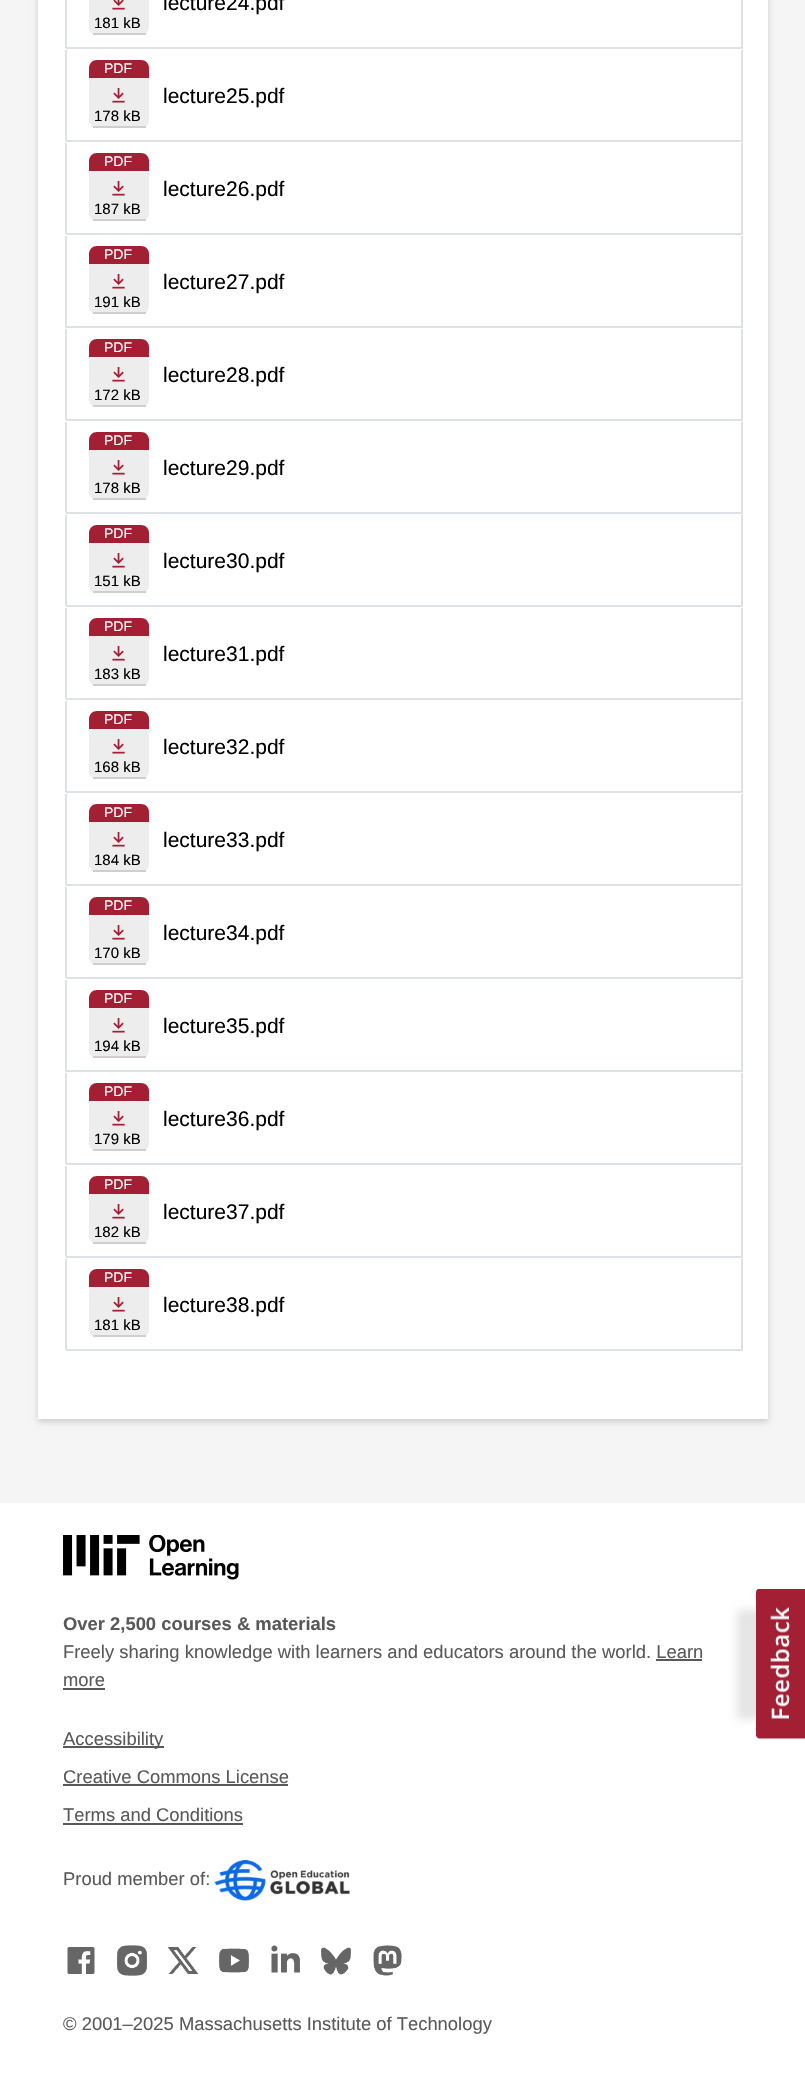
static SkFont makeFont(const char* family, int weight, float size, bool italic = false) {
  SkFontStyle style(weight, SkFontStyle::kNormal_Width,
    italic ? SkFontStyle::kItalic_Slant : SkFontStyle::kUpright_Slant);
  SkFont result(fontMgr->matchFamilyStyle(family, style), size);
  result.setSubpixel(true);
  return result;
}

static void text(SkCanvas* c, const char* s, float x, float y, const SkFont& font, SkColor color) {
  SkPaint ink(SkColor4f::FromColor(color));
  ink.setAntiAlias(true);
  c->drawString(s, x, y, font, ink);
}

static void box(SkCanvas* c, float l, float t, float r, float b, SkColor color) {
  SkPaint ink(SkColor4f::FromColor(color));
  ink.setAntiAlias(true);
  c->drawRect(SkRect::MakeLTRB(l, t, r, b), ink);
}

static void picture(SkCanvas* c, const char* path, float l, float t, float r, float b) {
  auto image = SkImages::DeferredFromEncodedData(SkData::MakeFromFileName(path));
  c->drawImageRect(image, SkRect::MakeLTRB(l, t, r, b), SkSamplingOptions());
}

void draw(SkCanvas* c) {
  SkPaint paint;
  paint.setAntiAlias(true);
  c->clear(0xfff5f5f5);
  paint.setColor(0x29000000);
  paint.setMaskFilter(SkMaskFilter::MakeBlur(kNormal_SkBlurStyle, 3));
  c->drawRect(SkRect::MakeLTRB(38, -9, 768, 1422), paint);
  paint.setMaskFilter(nullptr);
  box(c, 38, 0, 768, 1419, 0xffffffff);
  box(c, 741, 0, 743, 48, 0xffdee2e6);
  box(c, 66, 47, 743, 49, 0xffdee2e6);
  box(c, 65, 0, 67, 48, 0xffdee2e6);
  SkFont face1 = makeFont("Liberation Sans", 400, 21);
  text(c, "lecture24.pdf", 163, 10, face1, 0xff000000);
  paint.setColor(0xffededed);
  c->drawPath(SkPathBuilder().moveTo(89, -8).lineTo(149, -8).lineTo(149, 27).cubicTo(149, 31.5f, 145.5f, 35, 141, 35).lineTo(97, 35).cubicTo(92.5f, 35, 89, 31.5f, 89, 27).close().detach(), paint);
  box(c, 93, 33, 146, 35, 0xffcfcfcf);
  picture(c, "img_01.png", 112, 0, 125, 10);
  SkFont face2 = makeFont("Liberation Sans", 400, 15);
  text(c, "181 kB", 94, 28, face2, 0xff000000);
  box(c, 741, 50, 743, 141, 0xffdee2e6);
  box(c, 66, 140, 743, 142, 0xffdee2e6);
  box(c, 65, 50, 67, 141, 0xffdee2e6);
  paint.setColor(0xffa31f34);
  c->drawPath(SkPathBuilder().moveTo(97, 60).lineTo(141, 60).cubicTo(145.5f, 60, 149, 63.5f, 149, 68).lineTo(149, 78).lineTo(89, 78).lineTo(89, 68).cubicTo(89, 63.5f, 92.5f, 60, 97, 60).close().detach(), paint);
  SkFont face3 = makeFont("Liberation Sans", 400, 14);
  text(c, "PDF", 104, 73, face3, 0xffffffff);
  paint.setColor(0xffededed);
  c->drawPath(SkPathBuilder().moveTo(89, 78).lineTo(149, 78).lineTo(149, 120).cubicTo(149, 124.5f, 145.5f, 128, 141, 128).lineTo(97, 128).cubicTo(92.5f, 128, 89, 124.5f, 89, 120).close().detach(), paint);
  box(c, 93, 126, 146, 128, 0xffcfcfcf);
  picture(c, "img_02.png", 112, 88, 125, 103);
  text(c, "178 kB", 94, 121, face2, 0xff000000);
  text(c, "lecture25.pdf", 163, 103, face1, 0xff000000);
  box(c, 741, 143, 743, 234, 0xffdee2e6);
  box(c, 66, 233, 743, 235, 0xffdee2e6);
  box(c, 65, 143, 67, 234, 0xffdee2e6);
  paint.setColor(0xffa31f34);
  c->drawPath(SkPathBuilder().moveTo(97, 153).lineTo(141, 153).cubicTo(145.5f, 153, 149, 156.5f, 149, 161).lineTo(149, 171).lineTo(89, 171).lineTo(89, 161).cubicTo(89, 156.5f, 92.5f, 153, 97, 153).close().detach(), paint);
  text(c, "PDF", 104, 166, face3, 0xffffffff);
  paint.setColor(0xffededed);
  c->drawPath(SkPathBuilder().moveTo(89, 171).lineTo(149, 171).lineTo(149, 213).cubicTo(149, 217.5f, 145.5f, 221, 141, 221).lineTo(97, 221).cubicTo(92.5f, 221, 89, 217.5f, 89, 213).close().detach(), paint);
  box(c, 93, 219, 146, 221, 0xffcfcfcf);
  picture(c, "img_02.png", 112, 181, 125, 196);
  text(c, "187 kB", 94, 214, face2, 0xff000000);
  text(c, "lecture26.pdf", 163, 196, face1, 0xff000000);
  box(c, 741, 236, 743, 327, 0xffdee2e6);
  box(c, 66, 326, 743, 328, 0xffdee2e6);
  box(c, 65, 236, 67, 327, 0xffdee2e6);
  paint.setColor(0xffa31f34);
  c->drawPath(SkPathBuilder().moveTo(97, 246).lineTo(141, 246).cubicTo(145.5f, 246, 149, 249.5f, 149, 254).lineTo(149, 264).lineTo(89, 264).lineTo(89, 254).cubicTo(89, 249.5f, 92.5f, 246, 97, 246).close().detach(), paint);
  text(c, "PDF", 104, 259, face3, 0xffffffff);
  paint.setColor(0xffededed);
  c->drawPath(SkPathBuilder().moveTo(89, 264).lineTo(149, 264).lineTo(149, 306).cubicTo(149, 310.5f, 145.5f, 314, 141, 314).lineTo(97, 314).cubicTo(92.5f, 314, 89, 310.5f, 89, 306).close().detach(), paint);
  box(c, 93, 312, 146, 314, 0xffcfcfcf);
  picture(c, "img_02.png", 112, 274, 125, 289);
  text(c, "191 kB", 94, 307, face2, 0xff000000);
  text(c, "lecture27.pdf", 163, 289, face1, 0xff000000);
  box(c, 741, 329, 743, 420, 0xffdee2e6);
  box(c, 66, 419, 743, 421, 0xffdee2e6);
  box(c, 65, 329, 67, 420, 0xffdee2e6);
  paint.setColor(0xffa31f34);
  c->drawPath(SkPathBuilder().moveTo(97, 339).lineTo(141, 339).cubicTo(145.5f, 339, 149, 342.5f, 149, 347).lineTo(149, 357).lineTo(89, 357).lineTo(89, 347).cubicTo(89, 342.5f, 92.5f, 339, 97, 339).close().detach(), paint);
  text(c, "PDF", 104, 352, face3, 0xffffffff);
  paint.setColor(0xffededed);
  c->drawPath(SkPathBuilder().moveTo(89, 357).lineTo(149, 357).lineTo(149, 399).cubicTo(149, 403.5f, 145.5f, 407, 141, 407).lineTo(97, 407).cubicTo(92.5f, 407, 89, 403.5f, 89, 399).close().detach(), paint);
  box(c, 93, 405, 146, 407, 0xffcfcfcf);
  picture(c, "img_02.png", 112, 367, 125, 382);
  text(c, "172 kB", 94, 400, face2, 0xff000000);
  text(c, "lecture28.pdf", 163, 382, face1, 0xff000000);
  box(c, 741, 422, 743, 513, 0xffdee2e6);
  box(c, 66, 512, 743, 514, 0xffdee2e6);
  box(c, 65, 422, 67, 513, 0xffdee2e6);
  paint.setColor(0xffa31f34);
  c->drawPath(SkPathBuilder().moveTo(97, 432).lineTo(141, 432).cubicTo(145.5f, 432, 149, 435.5f, 149, 440).lineTo(149, 450).lineTo(89, 450).lineTo(89, 440).cubicTo(89, 435.5f, 92.5f, 432, 97, 432).close().detach(), paint);
  text(c, "PDF", 104, 445, face3, 0xffffffff);
  paint.setColor(0xffededed);
  c->drawPath(SkPathBuilder().moveTo(89, 450).lineTo(149, 450).lineTo(149, 492).cubicTo(149, 496.5f, 145.5f, 500, 141, 500).lineTo(97, 500).cubicTo(92.5f, 500, 89, 496.5f, 89, 492).close().detach(), paint);
  box(c, 93, 498, 146, 500, 0xffcfcfcf);
  picture(c, "img_02.png", 112, 460, 125, 475);
  text(c, "178 kB", 94, 493, face2, 0xff000000);
  text(c, "lecture29.pdf", 163, 475, face1, 0xff000000);
  box(c, 741, 515, 743, 606, 0xffdee2e6);
  box(c, 66, 605, 743, 607, 0xffdee2e6);
  box(c, 65, 515, 67, 606, 0xffdee2e6);
  paint.setColor(0xffa31f34);
  c->drawPath(SkPathBuilder().moveTo(97, 525).lineTo(141, 525).cubicTo(145.5f, 525, 149, 528.5f, 149, 533).lineTo(149, 543).lineTo(89, 543).lineTo(89, 533).cubicTo(89, 528.5f, 92.5f, 525, 97, 525).close().detach(), paint);
  text(c, "PDF", 104, 538, face3, 0xffffffff);
  paint.setColor(0xffededed);
  c->drawPath(SkPathBuilder().moveTo(89, 543).lineTo(149, 543).lineTo(149, 585).cubicTo(149, 589.5f, 145.5f, 593, 141, 593).lineTo(97, 593).cubicTo(92.5f, 593, 89, 589.5f, 89, 585).close().detach(), paint);
  box(c, 93, 591, 146, 593, 0xffcfcfcf);
  picture(c, "img_02.png", 112, 553, 125, 568);
  text(c, "151 kB", 94, 586, face2, 0xff000000);
  text(c, "lecture30.pdf", 163, 568, face1, 0xff000000);
  box(c, 741, 608, 743, 699, 0xffdee2e6);
  box(c, 66, 698, 743, 700, 0xffdee2e6);
  box(c, 65, 608, 67, 699, 0xffdee2e6);
  paint.setColor(0xffa31f34);
  c->drawPath(SkPathBuilder().moveTo(97, 618).lineTo(141, 618).cubicTo(145.5f, 618, 149, 621.5f, 149, 626).lineTo(149, 636).lineTo(89, 636).lineTo(89, 626).cubicTo(89, 621.5f, 92.5f, 618, 97, 618).close().detach(), paint);
  text(c, "PDF", 104, 631, face3, 0xffffffff);
  paint.setColor(0xffededed);
  c->drawPath(SkPathBuilder().moveTo(89, 636).lineTo(149, 636).lineTo(149, 678).cubicTo(149, 682.5f, 145.5f, 686, 141, 686).lineTo(97, 686).cubicTo(92.5f, 686, 89, 682.5f, 89, 678).close().detach(), paint);
  box(c, 93, 684, 146, 686, 0xffcfcfcf);
  picture(c, "img_02.png", 112, 646, 125, 661);
  text(c, "183 kB", 94, 679, face2, 0xff000000);
  text(c, "lecture31.pdf", 163, 661, face1, 0xff000000);
  box(c, 741, 701, 743, 792, 0xffdee2e6);
  box(c, 66, 791, 743, 793, 0xffdee2e6);
  box(c, 65, 701, 67, 792, 0xffdee2e6);
  paint.setColor(0xffa31f34);
  c->drawPath(SkPathBuilder().moveTo(97, 711).lineTo(141, 711).cubicTo(145.5f, 711, 149, 714.5f, 149, 719).lineTo(149, 729).lineTo(89, 729).lineTo(89, 719).cubicTo(89, 714.5f, 92.5f, 711, 97, 711).close().detach(), paint);
  text(c, "PDF", 104, 724, face3, 0xffffffff);
  paint.setColor(0xffededed);
  c->drawPath(SkPathBuilder().moveTo(89, 729).lineTo(149, 729).lineTo(149, 771).cubicTo(149, 775.5f, 145.5f, 779, 141, 779).lineTo(97, 779).cubicTo(92.5f, 779, 89, 775.5f, 89, 771).close().detach(), paint);
  box(c, 93, 777, 146, 779, 0xffcfcfcf);
  picture(c, "img_02.png", 112, 739, 125, 754);
  text(c, "168 kB", 94, 772, face2, 0xff000000);
  text(c, "lecture32.pdf", 163, 754, face1, 0xff000000);
  box(c, 741, 794, 743, 885, 0xffdee2e6);
  box(c, 66, 884, 743, 886, 0xffdee2e6);
  box(c, 65, 794, 67, 885, 0xffdee2e6);
  paint.setColor(0xffa31f34);
  c->drawPath(SkPathBuilder().moveTo(97, 804).lineTo(141, 804).cubicTo(145.5f, 804, 149, 807.5f, 149, 812).lineTo(149, 822).lineTo(89, 822).lineTo(89, 812).cubicTo(89, 807.5f, 92.5f, 804, 97, 804).close().detach(), paint);
  text(c, "PDF", 104, 817, face3, 0xffffffff);
  paint.setColor(0xffededed);
  c->drawPath(SkPathBuilder().moveTo(89, 822).lineTo(149, 822).lineTo(149, 864).cubicTo(149, 868.5f, 145.5f, 872, 141, 872).lineTo(97, 872).cubicTo(92.5f, 872, 89, 868.5f, 89, 864).close().detach(), paint);
  box(c, 93, 870, 146, 872, 0xffcfcfcf);
  picture(c, "img_02.png", 112, 832, 125, 847);
  text(c, "184 kB", 94, 865, face2, 0xff000000);
  text(c, "lecture33.pdf", 163, 847, face1, 0xff000000);
  box(c, 741, 887, 743, 978, 0xffdee2e6);
  box(c, 66, 977, 743, 979, 0xffdee2e6);
  box(c, 65, 887, 67, 978, 0xffdee2e6);
  paint.setColor(0xffa31f34);
  c->drawPath(SkPathBuilder().moveTo(97, 897).lineTo(141, 897).cubicTo(145.5f, 897, 149, 900.5f, 149, 905).lineTo(149, 915).lineTo(89, 915).lineTo(89, 905).cubicTo(89, 900.5f, 92.5f, 897, 97, 897).close().detach(), paint);
  text(c, "PDF", 104, 910, face3, 0xffffffff);
  paint.setColor(0xffededed);
  c->drawPath(SkPathBuilder().moveTo(89, 915).lineTo(149, 915).lineTo(149, 957).cubicTo(149, 961.5f, 145.5f, 965, 141, 965).lineTo(97, 965).cubicTo(92.5f, 965, 89, 961.5f, 89, 957).close().detach(), paint);
  box(c, 93, 963, 146, 965, 0xffcfcfcf);
  picture(c, "img_02.png", 112, 925, 125, 940);
  text(c, "170 kB", 94, 958, face2, 0xff000000);
  text(c, "lecture34.pdf", 163, 940, face1, 0xff000000);
  box(c, 741, 980, 743, 1071, 0xffdee2e6);
  box(c, 66, 1070, 743, 1072, 0xffdee2e6);
  box(c, 65, 980, 67, 1071, 0xffdee2e6);
  paint.setColor(0xffa31f34);
  c->drawPath(SkPathBuilder().moveTo(97, 990).lineTo(141, 990).cubicTo(145.5f, 990, 149, 993.5f, 149, 998).lineTo(149, 1008).lineTo(89, 1008).lineTo(89, 998).cubicTo(89, 993.5f, 92.5f, 990, 97, 990).close().detach(), paint);
  text(c, "PDF", 104, 1003, face3, 0xffffffff);
  paint.setColor(0xffededed);
  c->drawPath(SkPathBuilder().moveTo(89, 1008).lineTo(149, 1008).lineTo(149, 1050).cubicTo(149, 1054.5f, 145.5f, 1058, 141, 1058).lineTo(97, 1058).cubicTo(92.5f, 1058, 89, 1054.5f, 89, 1050).close().detach(), paint);
  box(c, 93, 1056, 146, 1058, 0xffcfcfcf);
  picture(c, "img_02.png", 112, 1018, 125, 1033);
  text(c, "194 kB", 94, 1051, face2, 0xff000000);
  text(c, "lecture35.pdf", 163, 1033, face1, 0xff000000);
  box(c, 741, 1073, 743, 1164, 0xffdee2e6);
  box(c, 66, 1163, 743, 1165, 0xffdee2e6);
  box(c, 65, 1073, 67, 1164, 0xffdee2e6);
  paint.setColor(0xffa31f34);
  c->drawPath(SkPathBuilder().moveTo(97, 1083).lineTo(141, 1083).cubicTo(145.5f, 1083, 149, 1086.5f, 149, 1091).lineTo(149, 1101).lineTo(89, 1101).lineTo(89, 1091).cubicTo(89, 1086.5f, 92.5f, 1083, 97, 1083).close().detach(), paint);
  text(c, "PDF", 104, 1096, face3, 0xffffffff);
  paint.setColor(0xffededed);
  c->drawPath(SkPathBuilder().moveTo(89, 1101).lineTo(149, 1101).lineTo(149, 1143).cubicTo(149, 1147.5f, 145.5f, 1151, 141, 1151).lineTo(97, 1151).cubicTo(92.5f, 1151, 89, 1147.5f, 89, 1143).close().detach(), paint);
  box(c, 93, 1149, 146, 1151, 0xffcfcfcf);
  picture(c, "img_02.png", 112, 1111, 125, 1126);
  text(c, "179 kB", 94, 1144, face2, 0xff000000);
  text(c, "lecture36.pdf", 163, 1126, face1, 0xff000000);
  box(c, 741, 1166, 743, 1257, 0xffdee2e6);
  box(c, 66, 1256, 743, 1258, 0xffdee2e6);
  box(c, 65, 1166, 67, 1257, 0xffdee2e6);
  paint.setColor(0xffa31f34);
  c->drawPath(SkPathBuilder().moveTo(97, 1176).lineTo(141, 1176).cubicTo(145.5f, 1176, 149, 1179.5f, 149, 1184).lineTo(149, 1194).lineTo(89, 1194).lineTo(89, 1184).cubicTo(89, 1179.5f, 92.5f, 1176, 97, 1176).close().detach(), paint);
  text(c, "PDF", 104, 1189, face3, 0xffffffff);
  paint.setColor(0xffededed);
  c->drawPath(SkPathBuilder().moveTo(89, 1194).lineTo(149, 1194).lineTo(149, 1236).cubicTo(149, 1240.5f, 145.5f, 1244, 141, 1244).lineTo(97, 1244).cubicTo(92.5f, 1244, 89, 1240.5f, 89, 1236).close().detach(), paint);
  box(c, 93, 1242, 146, 1244, 0xffcfcfcf);
  picture(c, "img_02.png", 112, 1204, 125, 1219);
  text(c, "182 kB", 94, 1237, face2, 0xff000000);
  text(c, "lecture37.pdf", 163, 1219, face1, 0xff000000);
  box(c, 741, 1259, 743, 1350, 0xffdee2e6);
  box(c, 66, 1349, 743, 1351, 0xffdee2e6);
  box(c, 65, 1259, 67, 1350, 0xffdee2e6);
  paint.setColor(0xffa31f34);
  c->drawPath(SkPathBuilder().moveTo(97, 1269).lineTo(141, 1269).cubicTo(145.5f, 1269, 149, 1272.5f, 149, 1277).lineTo(149, 1287).lineTo(89, 1287).lineTo(89, 1277).cubicTo(89, 1272.5f, 92.5f, 1269, 97, 1269).close().detach(), paint);
  text(c, "PDF", 104, 1282, face3, 0xffffffff);
  paint.setColor(0xffededed);
  c->drawPath(SkPathBuilder().moveTo(89, 1287).lineTo(149, 1287).lineTo(149, 1329).cubicTo(149, 1333.5f, 145.5f, 1337, 141, 1337).lineTo(97, 1337).cubicTo(92.5f, 1337, 89, 1333.5f, 89, 1329).close().detach(), paint);
  box(c, 93, 1335, 146, 1337, 0xffcfcfcf);
  picture(c, "img_02.png", 112, 1297, 125, 1312);
  text(c, "181 kB", 94, 1330, face2, 0xff000000);
  text(c, "lecture38.pdf", 163, 1312, face1, 0xff000000);
  box(c, 0, 1503, 805, 2091, 0xffffffff);
  picture(c, "img_03.png", 63, 1535, 239, 1580);
  SkFont face4 = makeFont("Liberation Sans", 700, 18.4f);
  text(c, "Over 2,500 courses & materials", 63, 1630, face4, 0xff595959);
  SkFont face5 = makeFont("Liberation Sans", 400, 18.4f);
  text(c, "Freely sharing knowledge with learners and educators around the world. Learn", 63, 1658, face5, 0xff595959);
  text(c, "more", 63, 1686, face5, 0xff595959);
  box(c, 656, 1659, 702, 1661, 0xff595959);
  box(c, 63, 1688, 105, 1690, 0xff595959);
  box(c, 63, 1746, 164, 1748, 0xff595959);
  text(c, "Accessibility", 63, 1745, face5, 0xff595959);
  text(c, "Creative Commons License", 63, 1783, face5, 0xff595959);
  box(c, 63, 1784, 288, 1786, 0xff595959);
  text(c, "Terms and Conditions", 63, 1821, face5, 0xff595959);
  box(c, 63, 1823, 243, 1825, 0xff595959);
  text(c, "Proud member of:", 63, 1885, face5, 0xff595959);
  picture(c, "img_04.png", 214, 1860, 350, 1901);
  picture(c, "img_05.png", 67, 1947, 95, 1974);
  picture(c, "img_06.png", 117, 1945, 147, 1976);
  picture(c, "img_07.png", 168, 1947, 198, 1974);
  picture(c, "img_08.png", 219, 1948, 249, 1973);
  picture(c, "img_09.png", 271, 1945, 300, 1973);
  picture(c, "img_10.png", 321, 1947, 351, 1975);
  picture(c, "img_11.png", 373, 1945, 402, 1976);
  text(c, "© 2001–2025 Massachusetts Institute of Technology", 63, 2030, face5, 0xff595959);
  paint.setColor(0x1a000000);
  paint.setMaskFilter(SkMaskFilter::MakeBlur(kNormal_SkBlurStyle, 4));
  c->drawRoundRect(SkRect::MakeLTRB(737, 1610, 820, 1719), 3, 3, paint);
  paint.setMaskFilter(nullptr);
  picture(c, "img_12.png", 756, 1589, 805, 1739);
}
